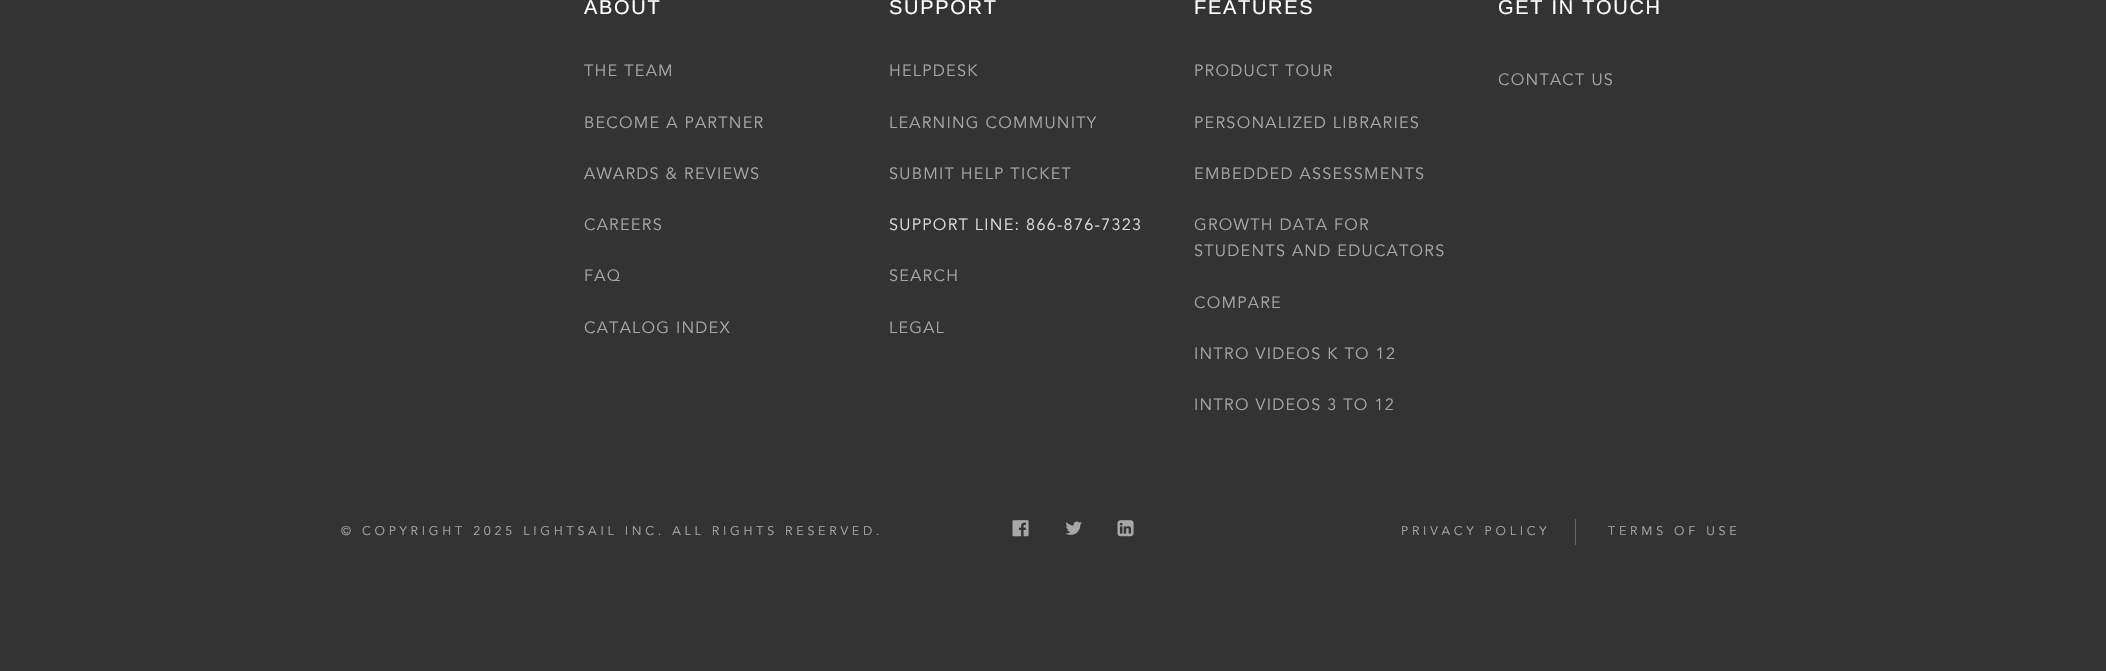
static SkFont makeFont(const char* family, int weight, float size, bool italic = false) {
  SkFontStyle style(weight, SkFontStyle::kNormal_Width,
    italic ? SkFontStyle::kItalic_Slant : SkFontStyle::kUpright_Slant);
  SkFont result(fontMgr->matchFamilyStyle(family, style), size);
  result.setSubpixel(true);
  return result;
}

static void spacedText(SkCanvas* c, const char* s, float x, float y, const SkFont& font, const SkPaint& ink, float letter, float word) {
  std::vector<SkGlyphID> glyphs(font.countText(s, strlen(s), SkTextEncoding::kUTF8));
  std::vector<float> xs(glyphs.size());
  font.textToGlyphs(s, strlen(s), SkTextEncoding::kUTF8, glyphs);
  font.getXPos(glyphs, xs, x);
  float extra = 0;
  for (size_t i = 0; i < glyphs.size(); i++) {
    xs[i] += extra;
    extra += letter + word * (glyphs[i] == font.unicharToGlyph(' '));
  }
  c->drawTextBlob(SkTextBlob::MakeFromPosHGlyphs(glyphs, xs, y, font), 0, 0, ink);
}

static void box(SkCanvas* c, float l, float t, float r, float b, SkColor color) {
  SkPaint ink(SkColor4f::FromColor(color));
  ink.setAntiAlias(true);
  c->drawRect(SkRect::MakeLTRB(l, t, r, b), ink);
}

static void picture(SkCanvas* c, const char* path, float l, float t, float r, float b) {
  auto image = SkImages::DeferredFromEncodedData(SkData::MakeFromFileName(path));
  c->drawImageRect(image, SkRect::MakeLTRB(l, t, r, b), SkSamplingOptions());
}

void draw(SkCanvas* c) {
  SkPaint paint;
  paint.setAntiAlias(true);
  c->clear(0xff333333);
  SkFont face1 = makeFont("Liberation Sans", 400, 20);
  paint.setColor(0xffffffff);
  spacedText(c, "ABOUT", 584, 14, face1, paint, 1.7f, 0);
  SkFont face2 = makeFont("Avenir Next", 400, 16.25f);
  paint.setColor(0xffa7a7a7);
  spacedText(c, "THE TEAM", 584, 76, face2, paint, 1.25f, 0);
  spacedText(c, "BECOME A PARTNER", 584, 128, face2, paint, 1.25f, 0);
  spacedText(c, "AWARDS & REVIEWS", 584, 179, face2, paint, 1.25f, 0);
  spacedText(c, "CAREERS", 584, 230, face2, paint, 1.25f, 0);
  spacedText(c, "FAQ", 584, 281, face2, paint, 1.25f, 0);
  spacedText(c, "CATALOG INDEX", 584, 333, face2, paint, 1.25f, 0);
  paint.setColor(0xffffffff);
  spacedText(c, "SUPPORT", 889, 14, face1, paint, 1.7f, 0);
  paint.setColor(0xffa7a7a7);
  spacedText(c, "HELPDESK", 889, 76, face2, paint, 1.25f, 0);
  spacedText(c, "LEARNING COMMUNITY", 889, 128, face2, paint, 1.25f, 0);
  spacedText(c, "SUBMIT HELP TICKET", 889, 179, face2, paint, 1.25f, 0);
  paint.setColor(0xffdddddd);
  spacedText(c, "SUPPORT LINE: 866-876-7323", 889, 230, face2, paint, 1.25f, 0);
  paint.setColor(0xffa7a7a7);
  spacedText(c, "SEARCH", 889, 281, face2, paint, 1.25f, 0);
  spacedText(c, "LEGAL", 889, 333, face2, paint, 1.25f, 0);
  paint.setColor(0xffffffff);
  spacedText(c, "FEATURES", 1194, 14, face1, paint, 1.7f, 0);
  paint.setColor(0xffa7a7a7);
  spacedText(c, "PRODUCT TOUR", 1194, 76, face2, paint, 1.25f, 0);
  spacedText(c, "PERSONALIZED LIBRARIES", 1194, 128, face2, paint, 1.25f, 0);
  spacedText(c, "EMBEDDED ASSESSMENTS", 1194, 179, face2, paint, 1.25f, 0);
  spacedText(c, "GROWTH DATA FOR", 1194, 230, face2, paint, 1.25f, 0);
  spacedText(c, "STUDENTS AND EDUCATORS", 1194, 256, face2, paint, 1.25f, 0);
  spacedText(c, "COMPARE", 1194, 308, face2, paint, 1.25f, 0);
  spacedText(c, "INTRO VIDEOS K TO 12", 1194, 359, face2, paint, 1.25f, 0);
  spacedText(c, "INTRO VIDEOS 3 TO 12", 1194, 410, face2, paint, 1.25f, 0);
  paint.setColor(0xffffffff);
  spacedText(c, "GET IN TOUCH", 1498, 14, face1, paint, 1.7f, 0);
  paint.setColor(0xffa7a7a7);
  spacedText(c, "CONTACT US", 1498, 85, face2, paint, 1.25f, 0);
  SkFont face3 = makeFont("Avenir Next", 400, 12.5f);
  spacedText(c, "© COPYRIGHT 2025 LIGHTSAIL INC. ALL RIGHTS RESERVED.", 341, 535, face3, paint, 3.75f, 0);
  picture(c, "img_01.png", 1012, 520, 1029, 537);
  picture(c, "img_02.png", 1065, 521, 1082, 535);
  picture(c, "img_03.png", 1117, 520, 1134, 537);
  box(c, 1575, 519, 1576, 545, 0xff666666);
  spacedText(c, "PRIVACY POLICY", 1401, 535, face3, paint, 3.75f, 0);
  spacedText(c, "TERMS OF USE", 1608, 535, face3, paint, 3.75f, 0);
}
